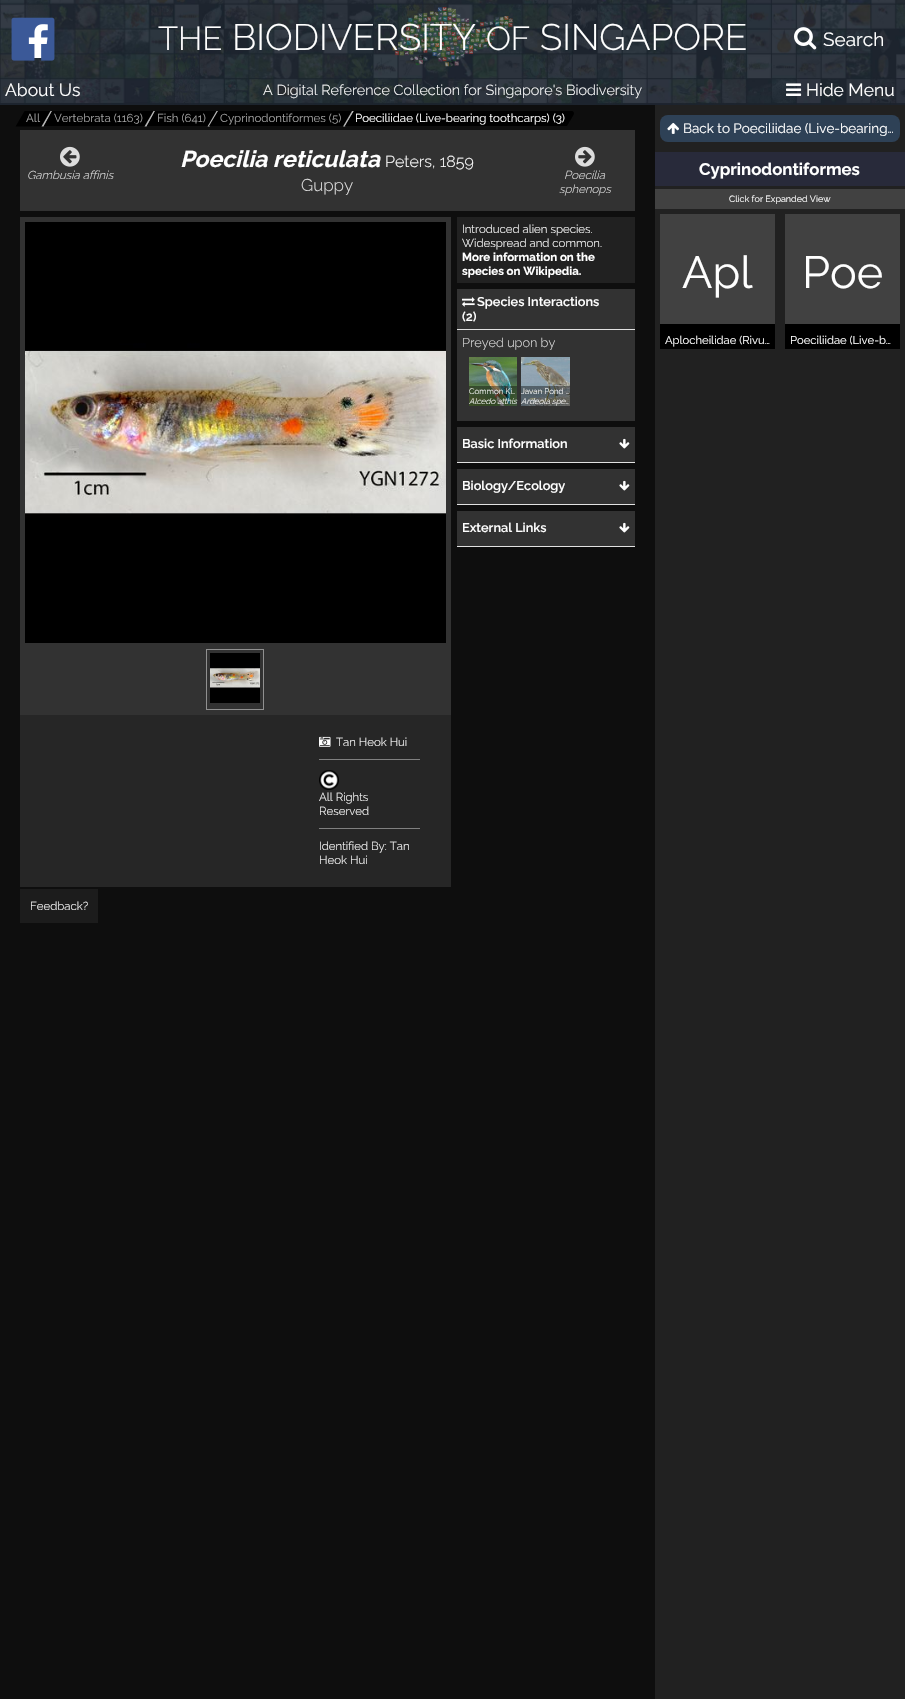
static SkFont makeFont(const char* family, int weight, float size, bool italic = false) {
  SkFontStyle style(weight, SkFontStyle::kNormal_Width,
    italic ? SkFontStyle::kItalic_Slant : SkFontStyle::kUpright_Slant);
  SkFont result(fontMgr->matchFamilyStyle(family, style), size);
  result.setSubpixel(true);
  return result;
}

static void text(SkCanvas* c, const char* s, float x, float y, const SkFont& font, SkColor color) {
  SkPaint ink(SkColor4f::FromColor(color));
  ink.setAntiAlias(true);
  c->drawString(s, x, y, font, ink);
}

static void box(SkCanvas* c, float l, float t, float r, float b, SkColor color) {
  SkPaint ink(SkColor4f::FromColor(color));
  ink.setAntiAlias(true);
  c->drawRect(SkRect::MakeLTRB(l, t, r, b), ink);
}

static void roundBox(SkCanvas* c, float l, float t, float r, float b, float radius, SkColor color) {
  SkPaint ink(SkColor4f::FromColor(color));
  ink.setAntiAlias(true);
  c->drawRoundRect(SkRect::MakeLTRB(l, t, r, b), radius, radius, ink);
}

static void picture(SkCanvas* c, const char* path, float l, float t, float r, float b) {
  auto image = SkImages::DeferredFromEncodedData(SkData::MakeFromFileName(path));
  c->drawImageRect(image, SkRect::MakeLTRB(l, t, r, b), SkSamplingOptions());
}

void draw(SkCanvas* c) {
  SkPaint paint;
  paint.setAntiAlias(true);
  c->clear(0xff0e0e0e);
  picture(c, "img_01.png", 0, 0, 905, 105);
  box(c, 28, 24, 48, 58, 0xffffffff);
  picture(c, "img_02.png", 11, 17, 55, 61);
  picture(c, "img_03.png", 392, 7, 513, 67);
  SkFont face1 = makeFont("Raleway", 300, 33);
  text(c, "THE", 158, 50, face1, 0xffffffff);
  SkFont face2 = makeFont("Raleway", 300, 36.75f);
  text(c, "BIODIVERSITY", 232, 50, face2, 0xffffffff);
  text(c, "OF", 486, 50, face1, 0xffffffff);
  text(c, "SINGAPORE", 540, 50, face2, 0xffffffff);
  picture(c, "img_04.png", 794, 27, 817, 50);
  SkFont face3 = makeFont("Raleway", 400, 19);
  text(c, "Search", 823, 46, face3, 0xffffffff);
  SkFont face4 = makeFont("Raleway", 400, 17.5f);
  text(c, "About Us", 5, 96, face4, 0xffffffff);
  SkFont face5 = makeFont("Raleway", 300, 14.4f);
  text(c, "A Digital Reference Collection for Singapore's Biodiversity", 263, 95, face5, 0xffffffff);
  picture(c, "img_05.png", 786, 83, 802, 96);
  text(c, "Hide Menu", 806, 96, face4, 0xffffffff);
  paint.setColor(0xff000000);
  c->drawPath(SkPathBuilder().moveTo(24.5f, 111).lineTo(52.5f, 111).lineTo(43.5f, 126.5f).lineTo(15.5f, 126.5f).close().detach(), paint);
  paint.setColor(0xffb5b5b5);
  c->drawPath(SkPathBuilder().moveTo(50.5f, 111).lineTo(52.5f, 111).lineTo(43.5f, 126.5f).lineTo(41.5f, 126.5f).close().detach(), paint);
  SkFont face6 = makeFont("Raleway", 400, 11.5f);
  text(c, "All", 26, 122, face6, 0xffa0a0a0);
  paint.setColor(0xff000000);
  c->drawPath(SkPathBuilder().moveTo(52, 111).lineTo(155, 111).lineTo(147, 126).lineTo(44, 126).close().detach(), paint);
  paint.setColor(0xffb5b5b5);
  c->drawPath(SkPathBuilder().moveTo(153.5f, 111).lineTo(155.5f, 111).lineTo(146.5f, 126.5f).lineTo(144.5f, 126.5f).close().detach(), paint);
  text(c, "Vertebrata (1163)", 54, 122, face6, 0xffa0a0a0);
  paint.setColor(0xff000000);
  c->drawPath(SkPathBuilder().moveTo(155, 111).lineTo(218, 111).lineTo(209, 126).lineTo(147, 126).close().detach(), paint);
  paint.setColor(0xffb5b5b5);
  c->drawPath(SkPathBuilder().moveTo(216.5f, 111).lineTo(218.5f, 111).lineTo(209.5f, 126.5f).lineTo(207.5f, 126.5f).close().detach(), paint);
  text(c, "Fish (641)", 157, 122, face6, 0xffa0a0a0);
  paint.setColor(0xff000000);
  c->drawPath(SkPathBuilder().moveTo(218, 111).lineTo(354, 111).lineTo(345, 126).lineTo(209, 126).close().detach(), paint);
  paint.setColor(0xffb5b5b5);
  c->drawPath(SkPathBuilder().moveTo(352, 111).lineTo(354, 111).lineTo(345, 126.5f).lineTo(343, 126.5f).close().detach(), paint);
  text(c, "Cyprinodontiformes (5)", 220, 122, face6, 0xffa0a0a0);
  paint.setColor(0xff000000);
  c->drawPath(SkPathBuilder().moveTo(354, 111).lineTo(571, 111).cubicTo(574, 111, 575, 113, 573, 116).lineTo(567, 126).lineTo(345, 126).close().detach(), paint);
  text(c, "Poeciliidae (Live-bearing toothcarps) (3)", 355, 122, face6, 0xffffffff);
  box(c, 20, 130, 635, 211, 0xff323232);
  picture(c, "img_06.png", 60, 146, 80, 167);
  SkFont face7 = makeFont("Raleway", 300, 11.5f, true);
  text(c, "Gambusia affinis", 27, 179, face7, 0xffdddddd);
  SkFont face8 = makeFont("Raleway", 700, 23, true);
  text(c, "Poecilia reticulata", 180, 167, face8, 0xffffffff);
  SkFont face9 = makeFont("Raleway", 300, 16);
  text(c, "Peters, 1859", 385, 167, face9, 0xffffffff);
  SkFont face10 = makeFont("Raleway", 300, 17);
  text(c, "Guppy", 301, 191, face10, 0xffdddddd);
  picture(c, "img_07.png", 575, 146, 595, 167);
  text(c, "Poecilia", 564, 179, face7, 0xffdddddd);
  text(c, "sphenops", 559, 193, face7, 0xffdddddd);
  box(c, 457, 217, 635, 283, 0xff212121);
  SkFont face11 = makeFont("Raleway", 300, 11.5f);
  text(c, "Introduced alien species.", 462, 233, face11, 0xffffffff);
  text(c, "Widespread and common.", 462, 247, face11, 0xffffffff);
  SkFont face12 = makeFont("Raleway", 700, 11.5f);
  text(c, "More information on the", 462, 261, face12, 0xffffffff);
  text(c, "species on Wikipedia.", 462, 275, face12, 0xffffffff);
  box(c, 457, 289, 635, 421, 0xff323232);
  box(c, 457, 329, 635, 330, 0xffe1e1e1);
  picture(c, "img_08.png", 462, 297, 475, 307);
  SkFont face13 = makeFont("Raleway", 600, 12.75f);
  text(c, "Species Interactions", 477, 306, face13, 0xffffffff);
  text(c, "(2)", 462, 321, face13, 0xffffffff);
  SkFont face14 = makeFont("Raleway", 300, 12.75f);
  text(c, "Preyed upon by", 462, 347, face14, 0xffdddddd);
  picture(c, "img_09.png", 469, 357, 517, 406);
  box(c, 469, 386, 517, 406, 0x66000000);
  SkFont face15 = makeFont("Raleway", 300, 8);
  text(c, "Common Ki…", 469, 394, face15, 0xffffffff);
  SkFont face16 = makeFont("Raleway", 300, 8, true);
  text(c, "Alcedo atthis", 469, 404, face16, 0xffffffff);
  picture(c, "img_10.png", 521, 357, 570, 406);
  box(c, 521, 386, 570, 406, 0x66000000);
  text(c, "Javan Pond …", 521, 394, face15, 0xffffffff);
  text(c, "Ardeola spe…", 521, 404, face16, 0xffffffff);
  box(c, 457, 427, 635, 462, 0xff323232);
  box(c, 457, 462, 635, 463, 0xffe1e1e1);
  text(c, "Basic Information", 462, 448, face13, 0xffffffff);
  picture(c, "img_11.png", 619, 438, 630, 449);
  box(c, 457, 469, 635, 504, 0xff323232);
  box(c, 457, 504, 635, 505, 0xffe1e1e1);
  text(c, "Biology/Ecology", 462, 490, face13, 0xffffffff);
  picture(c, "img_11.png", 619, 480, 630, 491);
  box(c, 457, 511, 635, 546, 0xff323232);
  box(c, 457, 546, 635, 547, 0xffe1e1e1);
  text(c, "External Links", 462, 532, face13, 0xffffffff);
  picture(c, "img_11.png", 619, 522, 630, 533);
  box(c, 20, 217, 451, 715, 0xff323232);
  picture(c, "img_12.png", 25, 222, 446, 643);
  paint.setStyle(SkPaint::kStroke_Style);
  paint.setStrokeWidth(1);
  paint.setColor(0xff909090);
  c->drawRect(SkRect::MakeLTRB(206.5f, 649.5f, 263.5f, 709.5f), paint);
  picture(c, "img_13.png", 210, 653, 260, 703);
  box(c, 20, 715, 451, 887, 0xff262626);
  box(c, 319, 759, 420, 760, 0xff808080);
  picture(c, "img_14.png", 319, 736, 331, 747);
  text(c, "Tan Heok Hui", 336, 746, face11, 0xffffffff);
  box(c, 319, 828, 420, 829, 0xff808080);
  picture(c, "img_15.png", 319, 770, 339, 790);
  text(c, "All Rights", 319, 801, face11, 0xffffffff);
  text(c, "Reserved", 319, 815, face11, 0xffffffff);
  text(c, "Identified By: Tan", 319, 850, face11, 0xffffffff);
  text(c, "Heok Hui", 319, 864, face11, 0xffffffff);
  box(c, 20, 889, 98, 923, 0xff1c1c1c);
  text(c, "Feedback?", 30, 910, face11, 0xffffffff);
  box(c, 655, 105, 905, 1699, 0xff212121);
  roundBox(c, 660, 115, 900, 142, 8, 0xff2e4156);
  picture(c, "img_16.png", 667, 122, 679, 134);
  SkFont face17 = makeFont("Raleway", 400, 13.5f);
  text(c, "Back to Poeciliidae (Live-bearing…", 683, 133, face17, 0xffffffff);
  box(c, 655, 152, 905, 186, 0xff282a3a);
  SkFont face18 = makeFont("Raleway", 700, 16.75f);
  text(c, "Cyprinodontiformes", 699, 175, face18, 0xffffffff);
  box(c, 655, 189, 905, 209, 0xff414141);
  SkFont face19 = makeFont("Raleway", 400, 9);
  text(c, "Click for Expanded View", 729, 202, face19, 0xffffffff);
  box(c, 660, 324, 775, 349, 0xff000000);
  box(c, 660, 214, 775, 324, 0xff414141);
  SkFont face20 = makeFont("Raleway", 400, 45);
  text(c, "Apl", 682, 288, face20, 0xffffffff);
  SkFont face21 = makeFont("Raleway", 400, 11.25f);
  text(c, "Aplocheilidae (Rivu…", 665, 344, face21, 0xffffffff);
  box(c, 785, 324, 900, 349, 0xff000000);
  box(c, 785, 214, 900, 324, 0xff414141);
  text(c, "Poe", 802, 288, face20, 0xffffffff);
  text(c, "Poeciliidae (Live-b…", 790, 344, face21, 0xffffffff);
}
